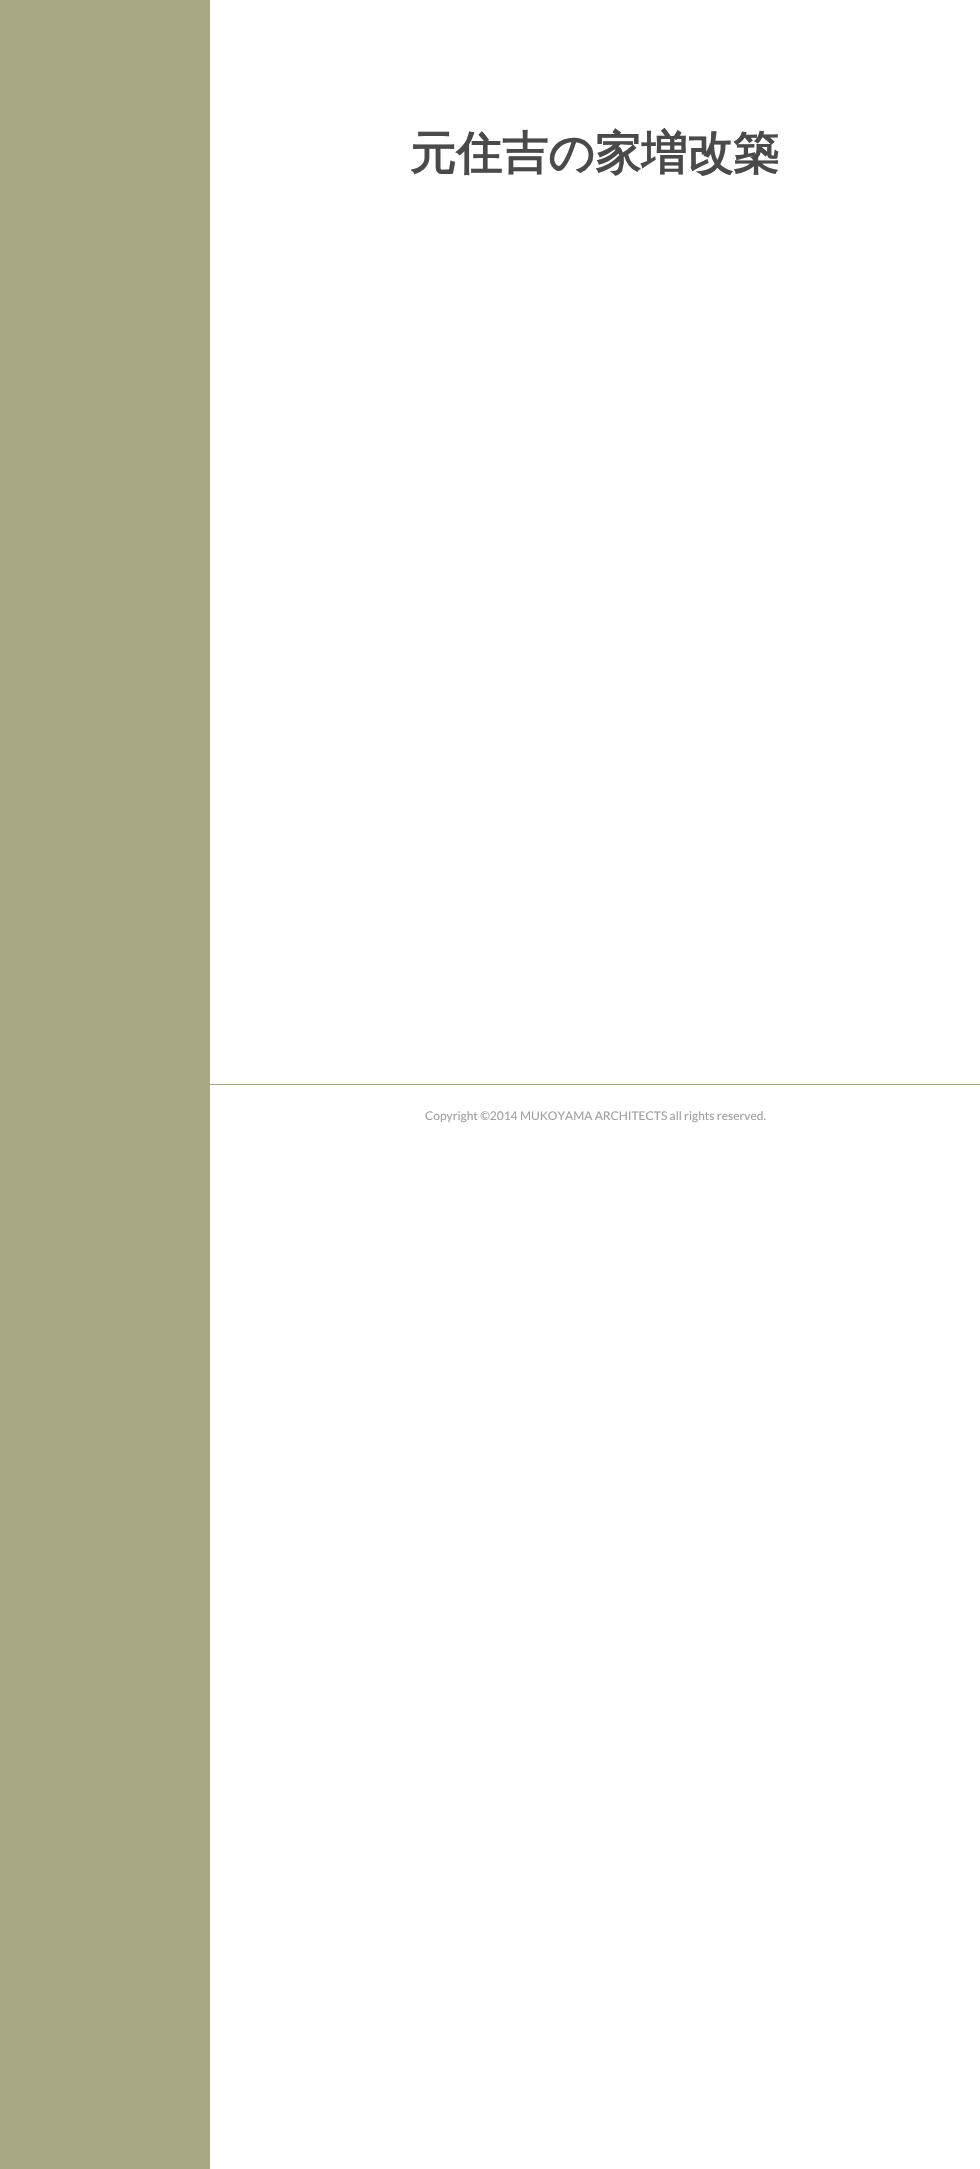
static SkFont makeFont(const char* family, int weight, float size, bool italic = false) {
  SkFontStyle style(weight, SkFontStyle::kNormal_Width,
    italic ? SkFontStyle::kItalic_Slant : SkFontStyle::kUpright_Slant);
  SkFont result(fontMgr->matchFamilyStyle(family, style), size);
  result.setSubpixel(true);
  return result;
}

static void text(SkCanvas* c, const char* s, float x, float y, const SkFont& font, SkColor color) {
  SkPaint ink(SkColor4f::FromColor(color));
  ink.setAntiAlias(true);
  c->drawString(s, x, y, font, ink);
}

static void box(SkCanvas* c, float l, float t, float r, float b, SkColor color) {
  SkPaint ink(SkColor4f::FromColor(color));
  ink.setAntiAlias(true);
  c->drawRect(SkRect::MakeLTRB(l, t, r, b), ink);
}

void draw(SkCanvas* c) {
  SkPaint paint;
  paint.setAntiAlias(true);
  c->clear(0xffffffff);
  box(c, 0, 0, 210, 2169, 0xffa8a885);
  SkFont face1 = makeFont("WenQuanYi Zen Hei", 700, 46);
  text(c, "元住吉の家増改築", 410, 169, face1, 0xff4a4a4a);
  box(c, 210, 1084, 980, 1085, 0xffa8a885);
  SkFont face2 = makeFont("Lato", 400, 12);
  text(c, "Copyright ©2014 MUKOYAMA ARCHITECTS all rights reserved.", 425, 1120, face2, 0xffa0a0a0);
}
